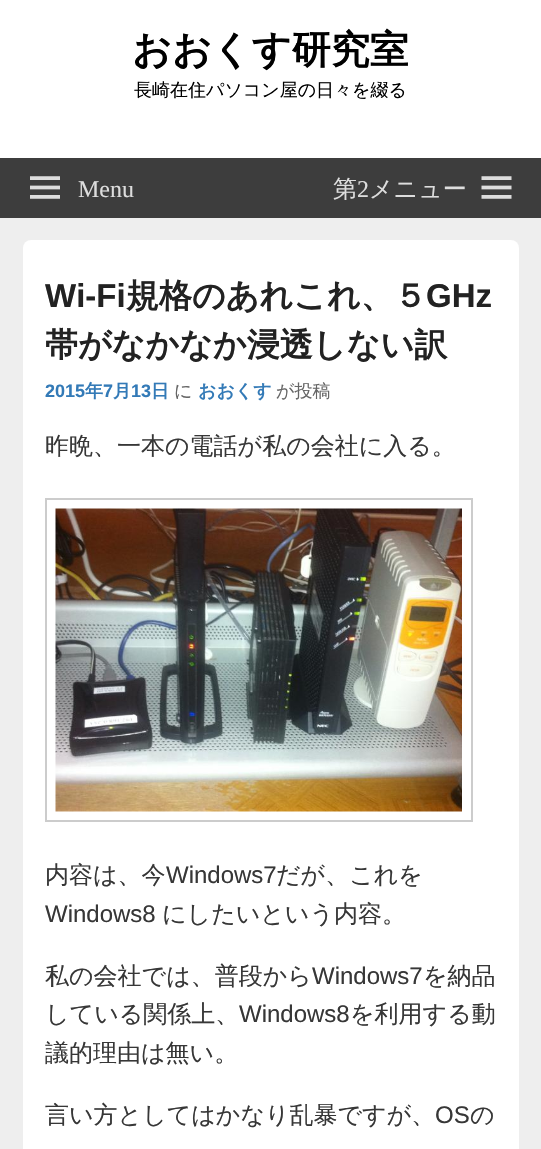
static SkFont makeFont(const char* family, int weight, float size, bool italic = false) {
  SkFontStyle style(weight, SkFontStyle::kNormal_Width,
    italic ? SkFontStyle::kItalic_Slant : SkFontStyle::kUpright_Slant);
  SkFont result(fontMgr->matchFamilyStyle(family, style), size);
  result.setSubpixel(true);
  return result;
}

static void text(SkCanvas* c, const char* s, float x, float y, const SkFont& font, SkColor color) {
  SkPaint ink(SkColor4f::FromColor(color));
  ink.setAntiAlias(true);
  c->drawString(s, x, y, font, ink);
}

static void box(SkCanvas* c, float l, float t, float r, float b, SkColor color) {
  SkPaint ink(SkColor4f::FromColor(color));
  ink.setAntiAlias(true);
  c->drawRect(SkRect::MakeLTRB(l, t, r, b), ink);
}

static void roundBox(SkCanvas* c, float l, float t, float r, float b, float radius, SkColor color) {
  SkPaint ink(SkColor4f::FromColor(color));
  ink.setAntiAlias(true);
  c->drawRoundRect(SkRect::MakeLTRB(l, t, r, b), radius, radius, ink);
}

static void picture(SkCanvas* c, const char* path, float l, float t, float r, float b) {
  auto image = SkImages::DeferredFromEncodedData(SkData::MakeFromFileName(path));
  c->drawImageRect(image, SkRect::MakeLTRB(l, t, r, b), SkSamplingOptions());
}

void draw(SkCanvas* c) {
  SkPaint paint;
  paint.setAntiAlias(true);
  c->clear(0xffeeeeee);
  box(c, 0, 0, 541, 158, 0xffffffff);
  SkFont face1 = makeFont("WenQuanYi Zen Hei", 700, 39);
  text(c, "おおくす研究室", 132, 63, face1, 0xff000000);
  SkFont face2 = makeFont("WenQuanYi Zen Hei", 500, 18);
  text(c, "長崎在住パソコン屋の日々を綴る", 134, 96, face2, 0xff000000);
  box(c, 0, 158, 541, 218, 0xff3d3d3d);
  picture(c, "img_01.png", 30, 176, 60, 199);
  SkFont face3 = makeFont("Liberation Serif", 400, 24);
  text(c, "Menu", 78, 197, face3, 0xffdddddd);
  SkFont face4 = makeFont("WenQuanYi Zen Hei", 500, 24);
  text(c, "第", 333, 197, face4, 0xffdddddd);
  text(c, "2", 357, 197, face3, 0xffdddddd);
  text(c, "メニュー", 369, 197, face4, 0xffdddddd);
  picture(c, "img_02.png", 481, 176, 512, 199);
  roundBox(c, 23, 240, 519, 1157, 8, 0xffffffff);
  SkFont face5 = makeFont("Liberation Sans", 700, 33);
  text(c, "Wi-Fi", 45, 307, face5, 0xff222222);
  SkFont face6 = makeFont("WenQuanYi Zen Hei", 700, 33);
  text(c, "規格のあれこれ、５", 126, 307, face6, 0xff222222);
  text(c, "GHz", 426, 307, face5, 0xff222222);
  text(c, "帯がなかなか浸透しない訳", 45, 356, face6, 0xff222222);
  SkFont face7 = makeFont("Liberation Sans", 700, 18);
  text(c, "2015", 45, 397, face7, 0xff337ab7);
  SkFont face8 = makeFont("WenQuanYi Zen Hei", 700, 18);
  text(c, "年", 85, 397, face8, 0xff337ab7);
  text(c, "7", 103, 397, face7, 0xff337ab7);
  text(c, "月", 113, 397, face8, 0xff337ab7);
  text(c, "13", 131, 397, face7, 0xff337ab7);
  text(c, "日", 151, 397, face8, 0xff337ab7);
  text(c, "に", 174, 397, face2, 0xff666666);
  text(c, "おおくす", 198, 397, face8, 0xff337ab7);
  text(c, "が投稿", 276, 397, face2, 0xff666666);
  text(c, "昨晩、一本の電話が私の会社に入る。", 45, 454, face4, 0xff373737);
  paint.setStyle(SkPaint::kStroke_Style);
  paint.setStrokeWidth(2);
  paint.setColor(0xffcccccc);
  c->drawRect(SkRect::MakeLTRB(46, 499, 472, 821), paint);
  picture(c, "img_03.png", 55, 508, 462, 812);
  text(c, "内容は、今", 45, 883, face4, 0xff373737);
  SkFont face9 = makeFont("Liberation Sans", 400, 24);
  text(c, "Windows7", 166, 883, face9, 0xff373737);
  text(c, "だが、これを", 276, 883, face4, 0xff373737);
  text(c, "Windows8", 45, 922, face9, 0xff373737);
  text(c, "にしたいという内容。", 162, 922, face4, 0xff373737);
  text(c, "私の会社では、普段から", 45, 984, face4, 0xff373737);
  text(c, "Windows7", 312, 984, face9, 0xff373737);
  text(c, "を納品", 423, 984, face4, 0xff373737);
  text(c, "している関係上、", 45, 1022, face4, 0xff373737);
  text(c, "Windows8", 239, 1022, face9, 0xff373737);
  text(c, "を利用する動", 350, 1022, face4, 0xff373737);
  text(c, "議的理由は無い。", 45, 1061, face4, 0xff373737);
  text(c, "言い方としてはかなり乱暴ですが、", 45, 1123, face4, 0xff373737);
  text(c, "OS", 435, 1123, face9, 0xff373737);
  text(c, "の", 470, 1123, face4, 0xff373737);
}
